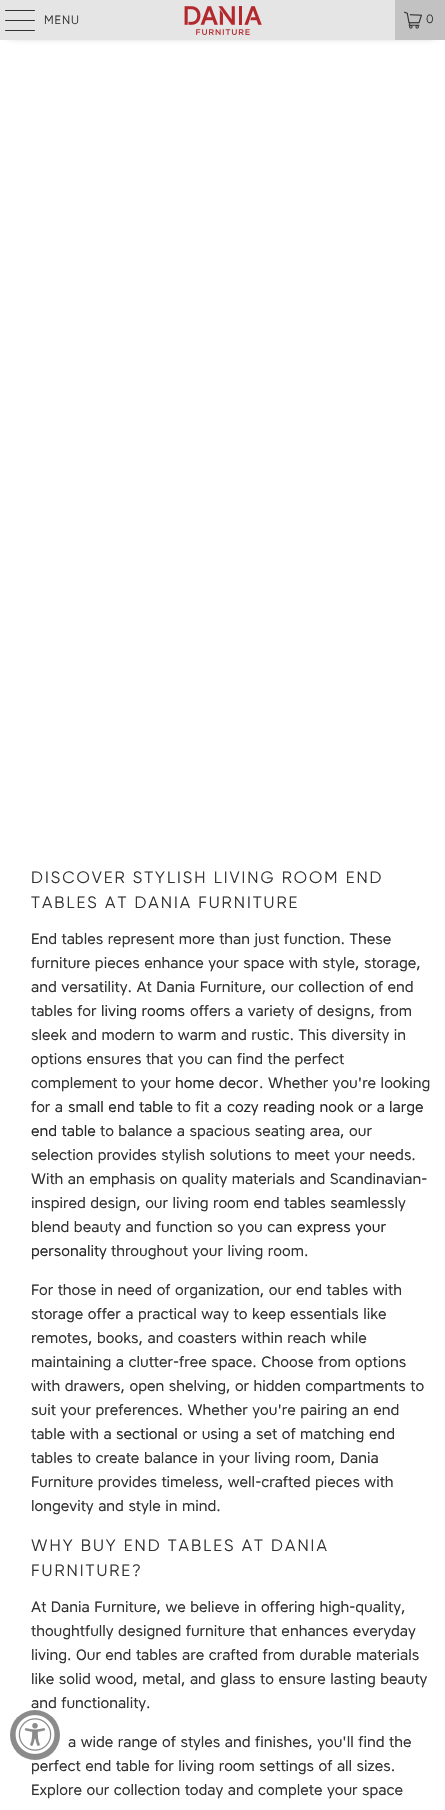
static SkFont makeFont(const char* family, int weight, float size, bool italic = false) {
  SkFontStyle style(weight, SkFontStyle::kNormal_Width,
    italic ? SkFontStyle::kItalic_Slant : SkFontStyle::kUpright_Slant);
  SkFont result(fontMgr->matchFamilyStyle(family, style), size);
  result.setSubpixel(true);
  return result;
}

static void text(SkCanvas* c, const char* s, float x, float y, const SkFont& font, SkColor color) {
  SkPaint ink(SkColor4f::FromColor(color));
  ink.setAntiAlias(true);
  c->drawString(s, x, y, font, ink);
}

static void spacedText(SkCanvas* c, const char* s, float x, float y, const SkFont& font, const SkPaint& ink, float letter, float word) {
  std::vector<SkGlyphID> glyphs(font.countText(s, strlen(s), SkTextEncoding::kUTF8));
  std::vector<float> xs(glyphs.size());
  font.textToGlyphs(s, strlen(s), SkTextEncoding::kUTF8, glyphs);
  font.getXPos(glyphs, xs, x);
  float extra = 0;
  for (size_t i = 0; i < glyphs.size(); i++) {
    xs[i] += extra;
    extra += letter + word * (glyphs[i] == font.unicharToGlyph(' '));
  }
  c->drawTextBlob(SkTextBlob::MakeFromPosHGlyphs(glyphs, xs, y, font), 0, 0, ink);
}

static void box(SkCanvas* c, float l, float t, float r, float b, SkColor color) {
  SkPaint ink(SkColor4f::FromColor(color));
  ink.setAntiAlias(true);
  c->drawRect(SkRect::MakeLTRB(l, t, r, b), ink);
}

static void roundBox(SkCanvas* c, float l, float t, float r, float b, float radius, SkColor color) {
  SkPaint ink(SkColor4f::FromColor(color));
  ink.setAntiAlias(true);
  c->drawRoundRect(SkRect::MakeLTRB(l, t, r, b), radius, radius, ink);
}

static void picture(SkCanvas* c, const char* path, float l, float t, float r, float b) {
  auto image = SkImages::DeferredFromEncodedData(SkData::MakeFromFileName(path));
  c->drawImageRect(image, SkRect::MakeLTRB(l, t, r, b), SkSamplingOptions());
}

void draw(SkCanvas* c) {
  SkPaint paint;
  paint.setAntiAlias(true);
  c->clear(0xffffffff);
  paint.setColor(0xff515151);
  paint.setMaskFilter(SkMaskFilter::MakeBlur(kNormal_SkBlurStyle, 5));
  c->drawRect(SkRect::MakeLTRB(10, 14, 435, 34), paint);
  paint.setMaskFilter(nullptr);
  box(c, 0, 0, 395, 40, 0xffe5e5e5);
  roundBox(c, 5, 10, 35, 11, 0.5f, 0xff333333);
  roundBox(c, 5, 20, 35, 21, 0.5f, 0xff333333);
  roundBox(c, 5, 30, 35, 31, 0.5f, 0xff333333);
  SkFont face1 = makeFont("Gilroy", 400, 12);
  paint.setColor(0xff333333);
  spacedText(c, "MENU", 44, 24, face1, paint, 1, 0);
  picture(c, "img_01.png", 184, 6, 262, 35);
  box(c, 395, 0, 445, 40, 0xffc2c2c2);
  picture(c, "img_02.png", 404, 11, 422, 29);
  spacedText(c, "0", 426, 23, face1, paint, 1, 0);
  SkFont face2 = makeFont("Gilroy", 400, 16.5f);
  spacedText(c, "DISCOVER STYLISH LIVING ROOM END", 31, 883, face2, paint, 2, 0);
  spacedText(c, "TABLES AT DANIA FURNITURE", 31, 908, face2, paint, 2, 0);
  SkFont face3 = makeFont("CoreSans", 400, 15);
  text(c, "End tables represent more than just function. These", 31, 944, face3, 0xff333333);
  text(c, "furniture pieces enhance your space with style, storage,", 31, 968, face3, 0xff333333);
  text(c, "and versatility. At Dania Furniture, our collection of end", 31, 992, face3, 0xff333333);
  text(c, "tables for", 31, 1016, face3, 0xff333333);
  text(c, "living rooms", 101, 1016, face3, 0xff292929);
  text(c, "offers a variety of designs, from", 190, 1016, face3, 0xff333333);
  text(c, "sleek and modern to warm and rustic. This diversity in", 31, 1040, face3, 0xff333333);
  text(c, "options ensures that you can find the perfect", 31, 1064, face3, 0xff333333);
  text(c, "complement to your", 31, 1088, face3, 0xff333333);
  text(c, "home decor", 175, 1088, face3, 0xff292929);
  text(c, ". Whether you're looking", 259, 1088, face3, 0xff333333);
  text(c, "for a", 31, 1112, face3, 0xff333333);
  text(c, "small end table", 68, 1112, face3, 0xff292929);
  text(c, "to fit a", 177, 1112, face3, 0xff333333);
  text(c, "cozy reading nook", 227, 1112, face3, 0xff292929);
  text(c, "or a", 358, 1112, face3, 0xff333333);
  text(c, "large", 389, 1112, face3, 0xff292929);
  text(c, "end table", 31, 1136, face3, 0xff292929);
  text(c, "to balance a spacious seating area, our", 100, 1136, face3, 0xff333333);
  text(c, "selection provides stylish solutions to meet your needs.", 31, 1160, face3, 0xff333333);
  text(c, "With an emphasis on quality materials and Scandinavian-", 31, 1184, face3, 0xff333333);
  text(c, "inspired design, our living room end tables seamlessly", 31, 1208, face3, 0xff333333);
  text(c, "blend beauty and function so you can", 31, 1232, face3, 0xff333333);
  text(c, "express your", 297, 1232, face3, 0xff292929);
  text(c, "personality", 31, 1256, face3, 0xff292929);
  text(c, "throughout your living room.", 111, 1256, face3, 0xff333333);
  text(c, "For those in need of organization, our end tables with", 31, 1295, face3, 0xff333333);
  text(c, "storage offer a practical way to keep essentials like", 31, 1319, face3, 0xff333333);
  text(c, "remotes, books, and coasters within reach while", 31, 1343, face3, 0xff333333);
  text(c, "maintaining a clutter-free space. Choose from options", 31, 1367, face3, 0xff333333);
  text(c, "with drawers, open shelving, or hidden compartments to", 31, 1391, face3, 0xff333333);
  text(c, "suit your preferences. Whether you're pairing an end", 31, 1415, face3, 0xff333333);
  text(c, "table with a", 31, 1439, face3, 0xff333333);
  text(c, "sectional", 116, 1439, face3, 0xff292929);
  text(c, "or using a set of matching end", 183, 1439, face3, 0xff333333);
  text(c, "tables to create balance in your living room, Dania", 31, 1463, face3, 0xff333333);
  text(c, "Furniture provides timeless, well-crafted pieces with", 31, 1487, face3, 0xff333333);
  text(c, "longevity and style in mind.", 31, 1511, face3, 0xff333333);
  spacedText(c, "WHY BUY END TABLES AT DANIA", 31, 1551, face2, paint, 2, 0);
  spacedText(c, "FURNITURE?", 31, 1576, face2, paint, 2, 0);
  text(c, "At Dania Furniture, we believe in offering high-quality,", 31, 1612, face3, 0xff333333);
  text(c, "thoughtfully designed furniture that enhances everyday", 31, 1636, face3, 0xff333333);
  text(c, "living. Our end tables are crafted from durable materials", 31, 1660, face3, 0xff333333);
  text(c, "like solid wood, metal, and glass to ensure lasting beauty", 31, 1684, face3, 0xff333333);
  text(c, "and functionality.", 31, 1708, face3, 0xff333333);
  text(c, "a wide range of styles and finishes, you'll find the", 68, 1747, face3, 0xff333333);
  text(c, "perfect end table for living room settings of all sizes.", 31, 1771, face3, 0xff333333);
  text(c, "Explore our collection today and complete your space", 31, 1795, face3, 0xff333333);
  paint.setColor(0xff8c8b8b);
  c->drawCircle(35, 1735, 25, paint);
  picture(c, "img_03.png", 15, 1715, 55, 1754);
}
